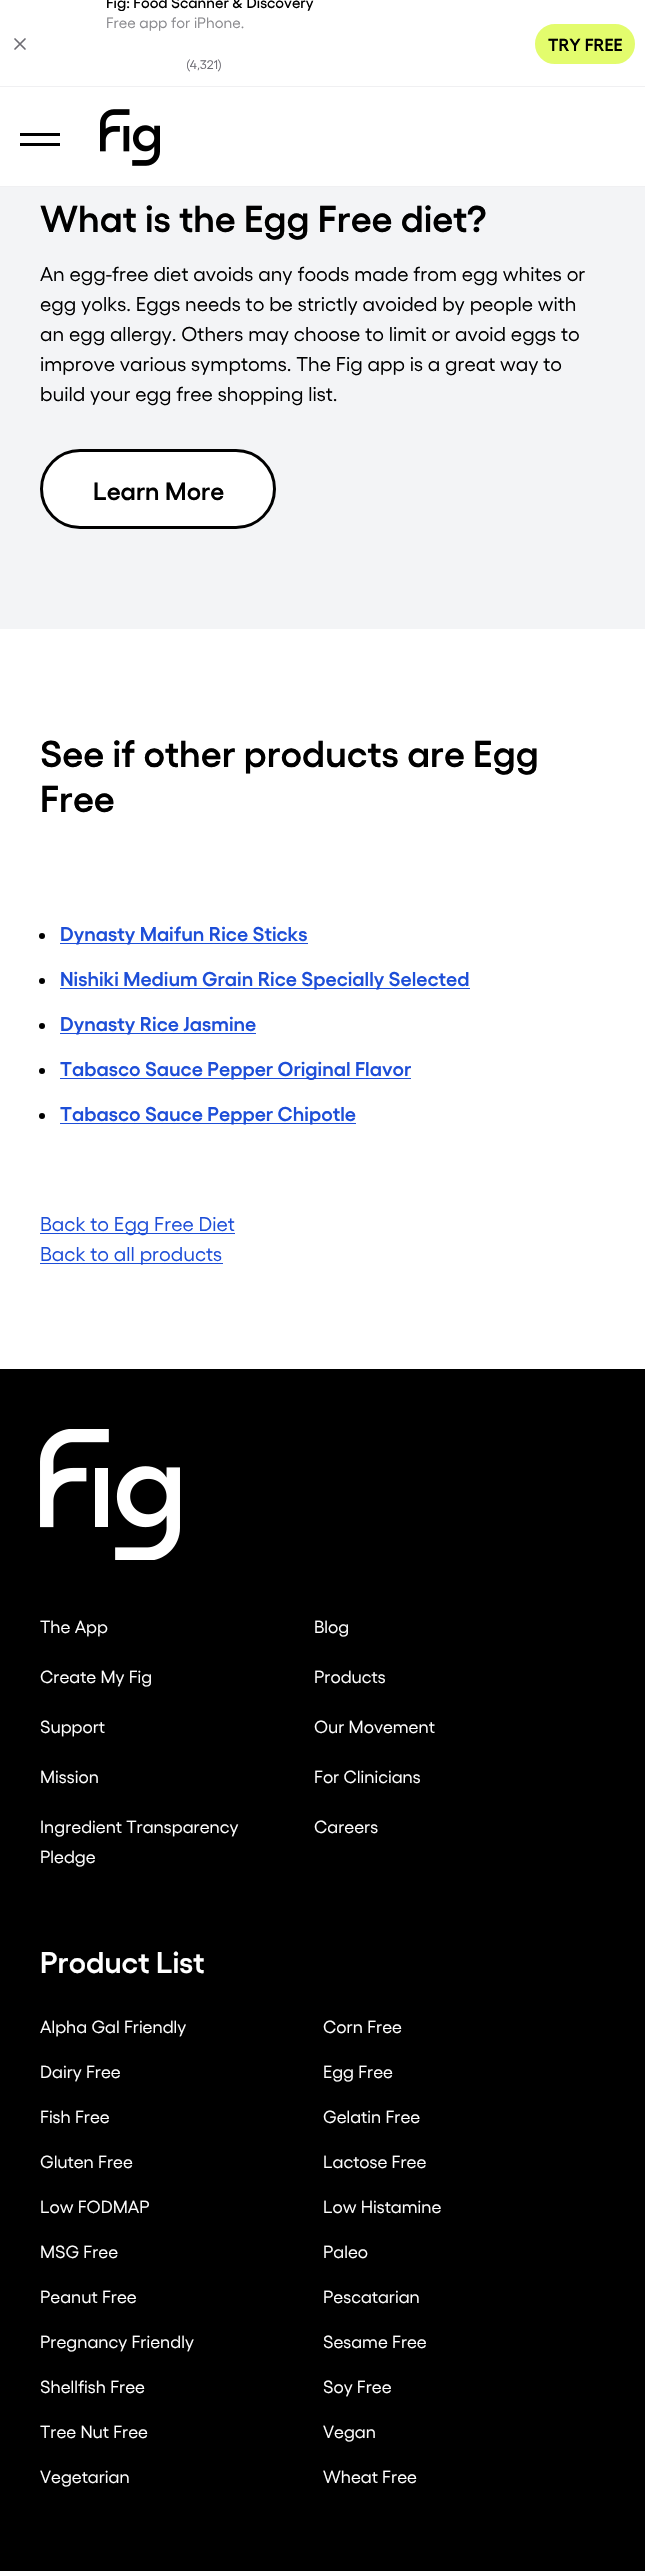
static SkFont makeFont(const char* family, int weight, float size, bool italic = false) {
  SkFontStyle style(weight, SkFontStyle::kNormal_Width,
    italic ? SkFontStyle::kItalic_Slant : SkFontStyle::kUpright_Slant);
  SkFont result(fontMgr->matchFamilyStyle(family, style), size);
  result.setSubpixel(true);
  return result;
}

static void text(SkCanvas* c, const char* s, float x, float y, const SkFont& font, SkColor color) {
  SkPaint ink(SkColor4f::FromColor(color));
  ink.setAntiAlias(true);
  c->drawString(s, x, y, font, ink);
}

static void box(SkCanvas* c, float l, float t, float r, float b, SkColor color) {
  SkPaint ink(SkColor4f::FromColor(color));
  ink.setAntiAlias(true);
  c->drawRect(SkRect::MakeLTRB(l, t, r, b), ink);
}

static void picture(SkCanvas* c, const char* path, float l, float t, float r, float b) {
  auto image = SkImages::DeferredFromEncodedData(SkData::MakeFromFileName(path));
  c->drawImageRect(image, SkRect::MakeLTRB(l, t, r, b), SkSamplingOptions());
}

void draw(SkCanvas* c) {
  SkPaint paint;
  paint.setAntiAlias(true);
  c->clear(0xffffffff);
  box(c, 0, 86, 645, 87, 0xfff0f0f2);
  paint.setStyle(SkPaint::kStroke_Style);
  paint.setStrokeWidth(1.7f);
  paint.setStrokeCap(SkPaint::kRound_Cap);
  paint.setStrokeJoin(SkPaint::kRound_Join);
  paint.setColor(0xff6d6c73);
  c->drawPath(SkPathBuilder().moveTo(25, 39).lineTo(15, 49).moveTo(15, 39).lineTo(25, 49).detach(), paint);
  SkFont face1 = makeFont("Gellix", 500, 15);
  text(c, "Fig: Food Scanner & Discovery", 106, 8, face1, 0xff000000);
  SkFont face2 = makeFont("Gellix", 400, 15);
  text(c, "Free app for iPhone.", 106, 28, face2, 0xff8a8a8e);
  SkFont face3 = makeFont("Gellix", 400, 12.5f);
  text(c, "(4,321)", 186, 69, face3, 0xff6d6c73);
  paint.setStyle(SkPaint::kFill_Style);
  paint.setColor(0xffe3fc6d);
  c->drawRoundRect(SkRect::MakeLTRB(536.5f, 25.5f, 633.5f, 62.5f), 18.5f, 18.5f, paint);
  paint.setStyle(SkPaint::kStroke_Style);
  paint.setStrokeWidth(3);
  paint.setStrokeCap(SkPaint::kButt_Cap);
  paint.setStrokeJoin(SkPaint::kMiter_Join);
  c->drawRoundRect(SkRect::MakeLTRB(536.5f, 25.5f, 633.5f, 62.5f), 18.5f, 18.5f, paint);
  SkFont face4 = makeFont("Gellix", 600, 17.5f);
  text(c, "TRY FREE", 548, 51, face4, 0xff000000);
  box(c, 0, 186, 645, 187, 0xfff0f0f2);
  box(c, 20, 133, 60, 136, 0xff000000);
  box(c, 20, 143, 60, 146, 0xff000000);
  picture(c, "img_01.png", 100, 109, 160, 166);
  box(c, 0, 187, 645, 629, 0xfff3f4f6);
  SkFont face5 = makeFont("Gellix", 600, 37.5f);
  text(c, "What is the Egg Free diet?", 40, 232, face5, 0xff000000);
  SkFont face6 = makeFont("Gellix", 400, 20);
  text(c, "An egg-free diet avoids any foods made from egg whites or", 40, 281, face6, 0xff000000);
  text(c, "egg yolks. Eggs needs to be strictly avoided by people with", 40, 311, face6, 0xff000000);
  text(c, "an egg allergy. Others may choose to limit or avoid eggs to", 40, 341, face6, 0xff000000);
  text(c, "improve various symptoms. The Fig app is a great way to", 40, 371, face6, 0xff000000);
  text(c, "build your egg free shopping list.", 40, 401, face6, 0xff000000);
  paint.setStyle(SkPaint::kFill_Style);
  paint.setColor(0xffffffff);
  c->drawRoundRect(SkRect::MakeLTRB(41.5f, 450.5f, 274.5f, 527.5f), 38.5f, 38.5f, paint);
  paint.setStyle(SkPaint::kStroke_Style);
  paint.setColor(0xff000000);
  c->drawRoundRect(SkRect::MakeLTRB(41.5f, 450.5f, 274.5f, 527.5f), 38.5f, 38.5f, paint);
  SkFont face7 = makeFont("Gellix", 600, 25);
  text(c, "Learn More", 93, 500, face7, 0xff000000);
  text(c, "See if other products are Egg", 40, 767, face5, 0xff000000);
  text(c, "Free", 40, 812, face5, 0xff000000);
  paint.setStyle(SkPaint::kFill_Style);
  c->drawCircle(42, 936, 3, paint);
  box(c, 60, 943, 308, 944, 0xff1d4ed8);
  SkFont face8 = makeFont("Gellix", 600, 20);
  text(c, "Dynasty Maifun Rice Sticks", 60, 941, face8, 0xff1d4ed8);
  c->drawCircle(42, 981, 3, paint);
  box(c, 60, 988, 470, 989, 0xff1d4ed8);
  text(c, "Nishiki Medium Grain Rice Specially Selected", 60, 986, face8, 0xff1d4ed8);
  c->drawCircle(42, 1026, 3, paint);
  box(c, 60, 1033, 256, 1034, 0xff1d4ed8);
  text(c, "Dynasty Rice Jasmine", 60, 1031, face8, 0xff1d4ed8);
  c->drawCircle(42, 1071, 3, paint);
  box(c, 60, 1078, 411, 1079, 0xff1d4ed8);
  text(c, "Tabasco Sauce Pepper Original Flavor", 60, 1076, face8, 0xff1d4ed8);
  c->drawCircle(42, 1116, 3, paint);
  box(c, 60, 1123, 356, 1124, 0xff1d4ed8);
  text(c, "Tabasco Sauce Pepper Chipotle", 60, 1121, face8, 0xff1d4ed8);
  box(c, 40, 1233, 235, 1234, 0xff1d4ed8);
  text(c, "Back to Egg Free Diet", 40, 1231, face6, 0xff1d4ed8);
  box(c, 40, 1263, 223, 1264, 0xff1d4ed8);
  text(c, "Back to all products", 40, 1261, face6, 0xff1d4ed8);
  box(c, 0, 1369, 645, 2571, 0xff000000);
  picture(c, "img_02.png", 40, 1429, 180, 1560);
  SkFont face9 = makeFont("Gellix", 400, 17.5f);
  text(c, "The App", 40, 1633, face9, 0xffffffff);
  text(c, "Blog", 314, 1633, face9, 0xffffffff);
  text(c, "Create My Fig", 40, 1683, face9, 0xffffffff);
  text(c, "Products", 314, 1683, face9, 0xffffffff);
  text(c, "Support", 40, 1733, face9, 0xffffffff);
  text(c, "Our Movement", 314, 1733, face9, 0xffffffff);
  text(c, "Mission", 40, 1783, face9, 0xffffffff);
  text(c, "For Clinicians", 314, 1783, face9, 0xffffffff);
  text(c, "Ingredient Transparency", 40, 1833, face9, 0xffffffff);
  text(c, "Pledge", 40, 1863, face9, 0xffffffff);
  text(c, "Careers", 314, 1833, face9, 0xffffffff);
  SkFont face10 = makeFont("Gellix", 600, 30);
  text(c, "Product List", 40, 1973, face10, 0xffffffff);
  text(c, "Alpha Gal Friendly", 40, 2033, face9, 0xffffffff);
  text(c, "Corn Free", 323, 2033, face9, 0xffffffff);
  text(c, "Dairy Free", 40, 2078, face9, 0xffffffff);
  text(c, "Egg Free", 323, 2078, face9, 0xffffffff);
  text(c, "Fish Free", 40, 2123, face9, 0xffffffff);
  text(c, "Gelatin Free", 323, 2123, face9, 0xffffffff);
  text(c, "Gluten Free", 40, 2168, face9, 0xffffffff);
  text(c, "Lactose Free", 323, 2168, face9, 0xffffffff);
  text(c, "Low FODMAP", 40, 2213, face9, 0xffffffff);
  text(c, "Low Histamine", 323, 2213, face9, 0xffffffff);
  text(c, "MSG Free", 40, 2258, face9, 0xffffffff);
  text(c, "Paleo", 323, 2258, face9, 0xffffffff);
  text(c, "Peanut Free", 40, 2303, face9, 0xffffffff);
  text(c, "Pescatarian", 323, 2303, face9, 0xffffffff);
  text(c, "Pregnancy Friendly", 40, 2348, face9, 0xffffffff);
  text(c, "Sesame Free", 323, 2348, face9, 0xffffffff);
  text(c, "Shellfish Free", 40, 2393, face9, 0xffffffff);
  text(c, "Soy Free", 323, 2393, face9, 0xffffffff);
  text(c, "Tree Nut Free", 40, 2438, face9, 0xffffffff);
  text(c, "Vegan", 323, 2438, face9, 0xffffffff);
  text(c, "Vegetarian", 40, 2483, face9, 0xffffffff);
  text(c, "Wheat Free", 323, 2483, face9, 0xffffffff);
}
